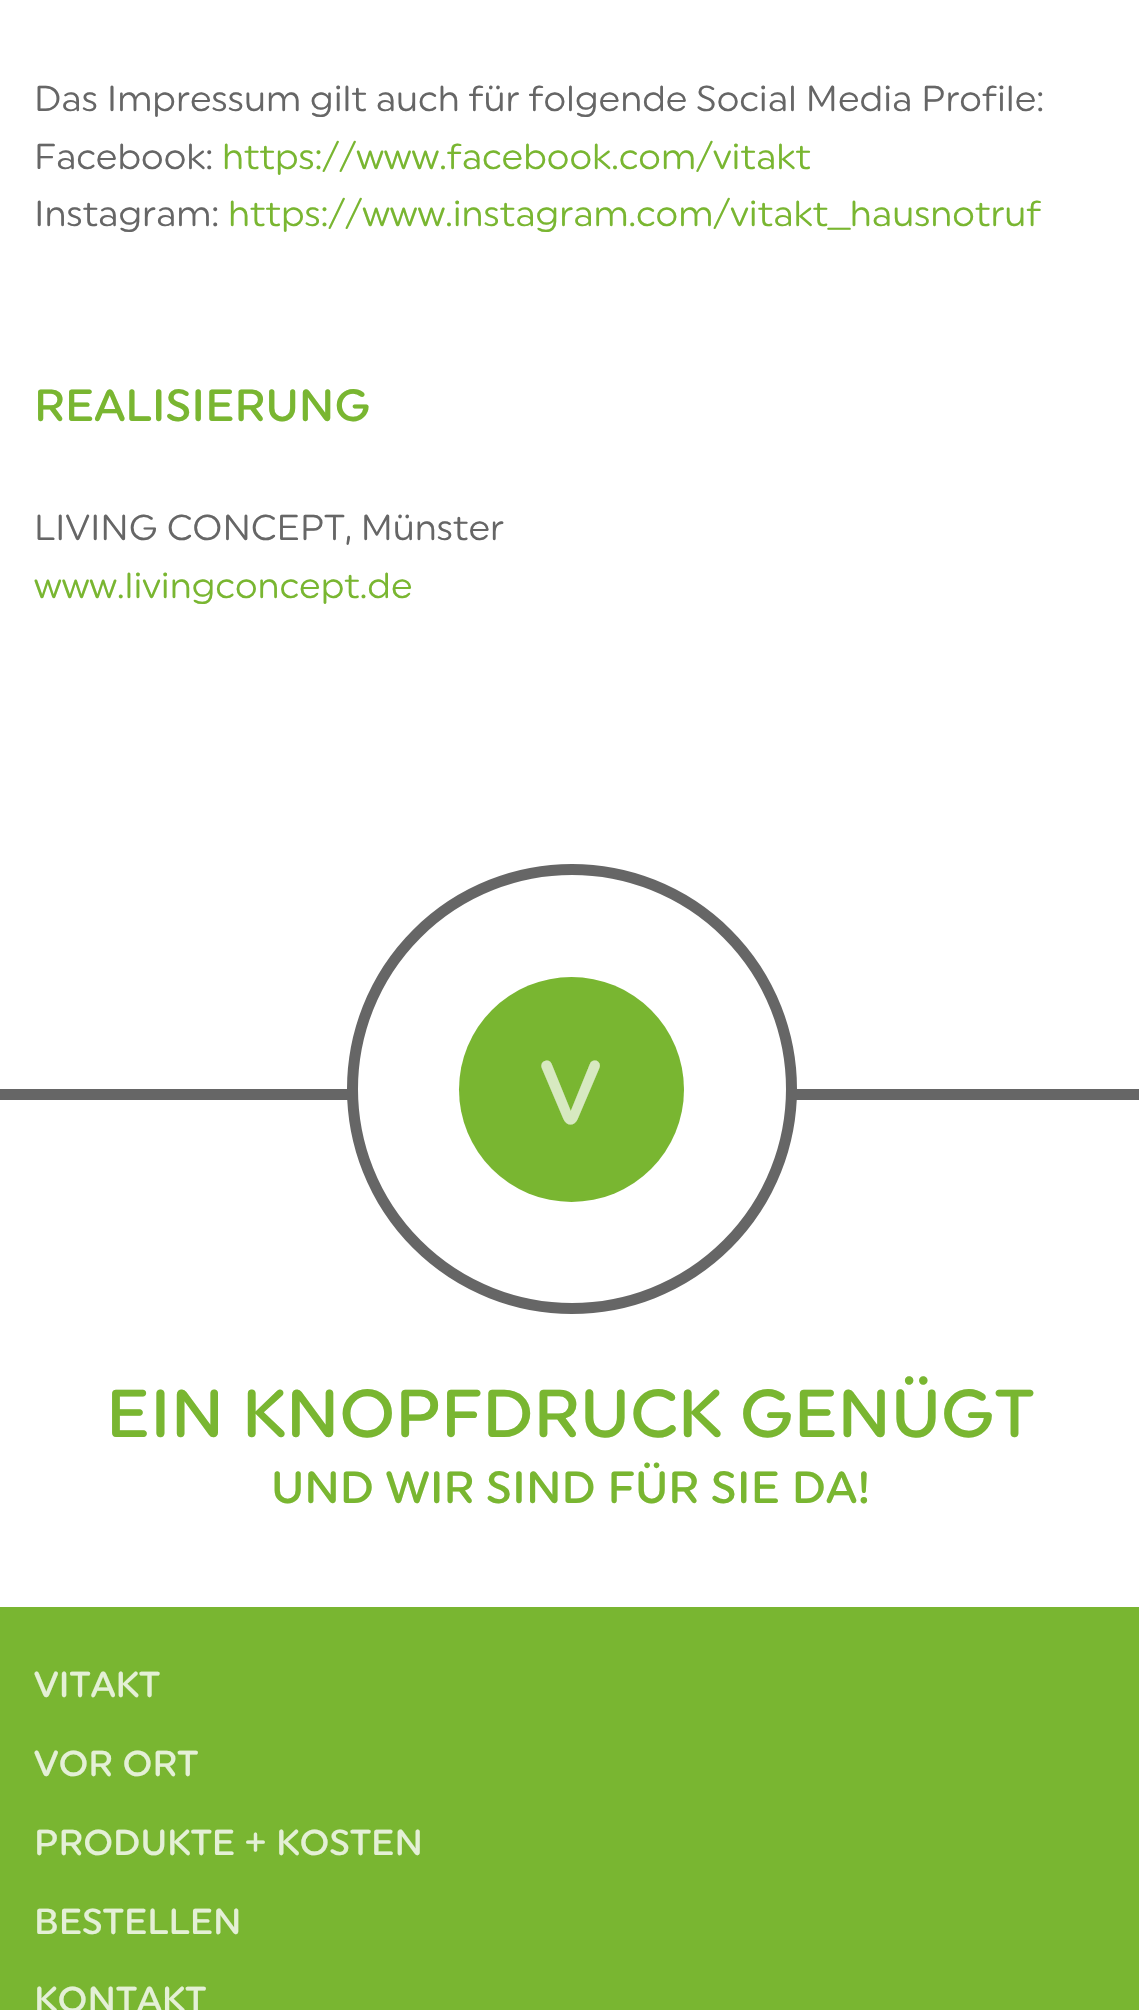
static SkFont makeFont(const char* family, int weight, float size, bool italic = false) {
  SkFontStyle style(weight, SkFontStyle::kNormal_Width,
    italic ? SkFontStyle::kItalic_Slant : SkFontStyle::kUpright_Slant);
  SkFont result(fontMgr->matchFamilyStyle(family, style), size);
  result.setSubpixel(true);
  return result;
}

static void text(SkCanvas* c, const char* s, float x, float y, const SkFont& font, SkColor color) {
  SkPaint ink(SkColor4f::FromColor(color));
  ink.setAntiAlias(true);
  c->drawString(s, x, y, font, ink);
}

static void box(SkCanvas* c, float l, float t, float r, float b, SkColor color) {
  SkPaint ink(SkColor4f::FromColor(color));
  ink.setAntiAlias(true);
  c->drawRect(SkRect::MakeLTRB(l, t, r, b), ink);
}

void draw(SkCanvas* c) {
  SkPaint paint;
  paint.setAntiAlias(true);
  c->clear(0xffffffff);
  SkFont face1 = makeFont("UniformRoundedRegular", 400, 36);
  text(c, "Das Impressum gilt auch für folgende Social Media Profile:", 34, 111, face1, 0xff666666);
  text(c, "Facebook:", 34, 169, face1, 0xff666666);
  text(c, "https://www.facebook.com/vitakt", 222, 169, face1, 0xff79b631);
  text(c, "Instagram:", 34, 226, face1, 0xff666666);
  text(c, "https://www.instagram.com/vitakt_hausnotruf", 228, 226, face1, 0xff79b631);
  SkFont face2 = makeFont("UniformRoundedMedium", 400, 45);
  text(c, "REALISIERUNG", 34, 421, face2, 0xff79b631);
  text(c, "LIVING CONCEPT, Münster", 34, 540, face1, 0xff666666);
  text(c, "www.livingconcept.de", 34, 598, face1, 0xff79b631);
  box(c, 0, 1089, 1139, 1100, 0xff666666);
  paint.setColor(0xffffffff);
  c->drawCircle(572, 1089, 219.5f, paint);
  paint.setStyle(SkPaint::kStroke_Style);
  paint.setStrokeWidth(11);
  paint.setColor(0xff666666);
  c->drawCircle(572, 1089, 219.5f, paint);
  paint.setStyle(SkPaint::kFill_Style);
  paint.setColor(0xff79b631);
  c->drawCircle(571.5f, 1089.5f, 112.5f, paint);
  SkFont face3 = makeFont("UniformRoundedMedium", 400, 90);
  text(c, "V", 540, 1124, face3, 0xffd7e9c1);
  SkFont face4 = makeFont("UniformRoundedMedium", 400, 67.5f);
  text(c, "EIN KNOPFDRUCK GENÜGT", 106, 1437, face4, 0xff79b631);
  text(c, "UND WIR SIND FÜR SIE DA!", 271, 1503, face2, 0xff79b631);
  box(c, 0, 1607, 1139, 2010, 0xff79b631);
  SkFont face5 = makeFont("UniformRoundedMedium", 400, 36);
  text(c, "VITAKT", 34, 1697, face5, 0xffe4f0d6);
  text(c, "VOR ORT", 34, 1776, face5, 0xffe4f0d6);
  text(c, "PRODUKTE + KOSTEN", 34, 1855, face5, 0xffe4f0d6);
  text(c, "BESTELLEN", 34, 1934, face5, 0xffe4f0d6);
  text(c, "KONTAKT", 34, 2012, face5, 0xffe4f0d6);
}
